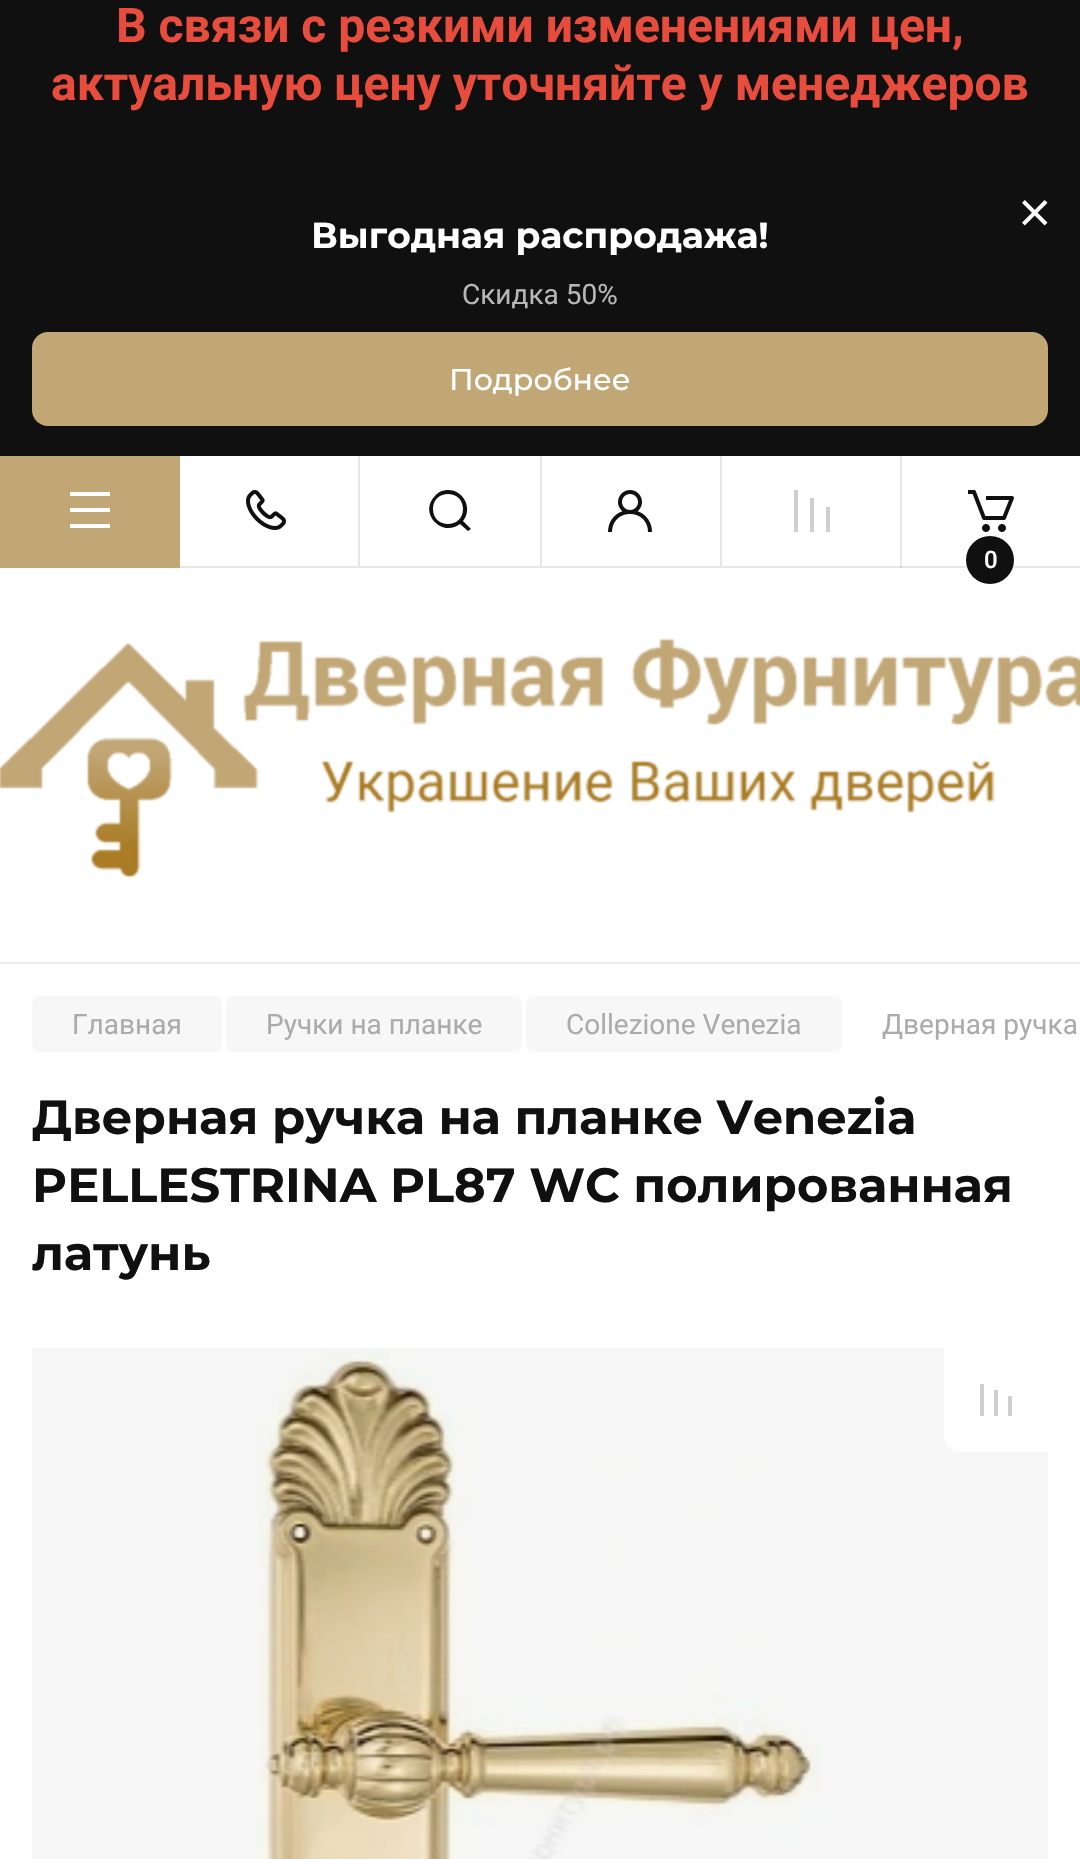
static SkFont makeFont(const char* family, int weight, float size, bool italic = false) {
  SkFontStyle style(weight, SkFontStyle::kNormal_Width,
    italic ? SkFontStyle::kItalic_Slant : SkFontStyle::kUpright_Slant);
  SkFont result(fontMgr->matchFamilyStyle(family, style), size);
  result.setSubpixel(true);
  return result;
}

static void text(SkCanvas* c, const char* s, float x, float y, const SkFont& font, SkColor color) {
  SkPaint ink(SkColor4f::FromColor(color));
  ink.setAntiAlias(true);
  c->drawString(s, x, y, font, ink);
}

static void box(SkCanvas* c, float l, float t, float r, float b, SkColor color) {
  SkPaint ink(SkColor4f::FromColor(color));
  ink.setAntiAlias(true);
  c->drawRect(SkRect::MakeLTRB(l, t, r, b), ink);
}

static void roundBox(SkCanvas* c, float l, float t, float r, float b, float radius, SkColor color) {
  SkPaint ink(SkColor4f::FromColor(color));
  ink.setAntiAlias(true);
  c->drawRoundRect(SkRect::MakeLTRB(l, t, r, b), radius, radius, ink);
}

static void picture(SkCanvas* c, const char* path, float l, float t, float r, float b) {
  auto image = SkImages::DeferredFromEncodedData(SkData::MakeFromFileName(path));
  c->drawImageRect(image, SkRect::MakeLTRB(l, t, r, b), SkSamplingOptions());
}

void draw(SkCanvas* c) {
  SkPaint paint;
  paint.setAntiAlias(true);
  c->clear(0xff101010);
  SkFont face1 = makeFont("Roboto", 700, 48);
  text(c, "В связи с резкими изменениями цен,", 116, 42, face1, 0xffe74c3c);
  text(c, "актуальную цену уточняйте у менеджеров", 51, 100, face1, 0xffe74c3c);
  picture(c, "img_01.png", 1022, 200, 1048, 226);
  SkFont face2 = makeFont("Montserrat", 700, 36);
  text(c, "Выгодная распродажа!", 311, 248, face2, 0xffffffff);
  SkFont face3 = makeFont("Roboto", 400, 28);
  text(c, "Скидка 50%", 462, 304, face3, 0xffb7b7b7);
  roundBox(c, 32, 332, 1048, 426, 16, 0xffc1a676);
  SkFont face4 = makeFont("Montserrat", 500, 30);
  text(c, "Подробнее", 449, 390, face4, 0xffffffff);
  box(c, 0, 456, 1080, 1859, 0xffffffff);
  box(c, 0, 456, 180, 568, 0xffc1a676);
  paint.setColor(0xffffffff);
  c->drawPath(SkPathBuilder().moveTo(70, 492).lineTo(110, 492).lineTo(110, 496).lineTo(70, 496).close().moveTo(70, 508).lineTo(110, 508).lineTo(110, 512).lineTo(70, 512).close().moveTo(110, 524).lineTo(70, 524).lineTo(70, 528).lineTo(110, 528).close().detach(), paint);
  box(c, 180, 566, 358, 568, 0xffe7e7e7);
  picture(c, "img_02.png", 246, 490, 286, 530);
  paint.setColor(0xffe7e7e7);
  c->drawPath(SkPathBuilder().moveTo(540, 568).lineTo(358, 568).lineTo(360, 566).lineTo(540, 566).close().detach(), paint);
  paint.setColor(0x1a101010);
  c->drawPath(SkPathBuilder().moveTo(358, 568).lineTo(358, 456).lineTo(360, 456).lineTo(360, 566).close().detach(), paint);
  paint.setColor(0xff101010);
  c->drawPath(SkPathBuilder().moveTo(448, 490).cubicTo(443, 490, 438, 492, 435, 496).cubicTo(418, 513, 442, 538, 460, 524).lineTo(468, 531).lineTo(471, 529).lineTo(463, 521).cubicTo(473, 509, 464, 490, 448, 490).close().moveTo(433, 509).cubicTo(433, 489, 463, 489, 463, 509).cubicTo(463, 529, 433, 529, 433, 509).close().detach(), paint);
  paint.setColor(0xffe7e7e7);
  c->drawPath(SkPathBuilder().moveTo(720, 568).lineTo(540, 568).lineTo(542, 566).lineTo(720, 566).close().detach(), paint);
  paint.setColor(0x1a101010);
  c->drawPath(SkPathBuilder().moveTo(540, 568).lineTo(540, 456).lineTo(542, 456).lineTo(542, 566).close().detach(), paint);
  picture(c, "img_03.png", 608, 490, 652, 532);
  paint.setColor(0xffe7e7e7);
  c->drawPath(SkPathBuilder().moveTo(902, 568).lineTo(720, 568).lineTo(722, 566).lineTo(902, 566).close().detach(), paint);
  paint.setColor(0x1a101010);
  c->drawPath(SkPathBuilder().moveTo(720, 568).lineTo(720, 456).lineTo(722, 456).lineTo(722, 566).close().detach(), paint);
  paint.setColor(0xffcfcfcf);
  c->drawPath(SkPathBuilder(SkPathFillType::kEvenOdd).moveTo(830, 532).lineTo(830, 507).lineTo(826, 507).lineTo(826, 532).close().moveTo(814, 498).lineTo(814, 532).lineTo(810, 532).lineTo(810, 498).close().moveTo(798, 490).lineTo(798, 532).lineTo(794, 532).lineTo(794, 490).close().detach(), paint);
  paint.setColor(0x1a101010);
  c->drawPath(SkPathBuilder().moveTo(1080, 568).lineTo(900, 568).lineTo(902, 566).lineTo(1080, 566).close().detach(), paint);
  c->drawPath(SkPathBuilder().moveTo(900, 568).lineTo(900, 456).lineTo(902, 456).lineTo(902, 566).close().detach(), paint);
  picture(c, "img_04.png", 968, 490, 1014, 532);
  paint.setColor(0xff101010);
  c->drawCircle(990, 560, 24, paint);
  SkFont face5 = makeFont("Roboto", 500, 24);
  text(c, "0", 984, 568, face5, 0xffffffff);
  box(c, 0, 962, 1080, 964, 0xffececec);
  picture(c, "img_05.png", 0, 637, 1080, 879);
  roundBox(c, 32, 996, 222, 1052, 8, 0xfff7f7f7);
  text(c, "Главная", 72, 1034, face3, 0xffababab);
  roundBox(c, 226, 996, 522, 1052, 8, 0xfff7f7f7);
  text(c, "Ручки на планке", 266, 1034, face3, 0xffababab);
  roundBox(c, 526, 996, 842, 1052, 8, 0xfff7f7f7);
  text(c, "Collezione Venezia", 566, 1034, face3, 0xffababab);
  text(c, "Дверная ручка", 882, 1034, face3, 0xffababab);
  SkFont face6 = makeFont("Montserrat", 700, 48);
  text(c, "Дверная ручка на планке Venezia", 32, 1134, face6, 0xff101010);
  text(c, "PELLESTRINA PL87 WC полированная", 32, 1202, face6, 0xff101010);
  text(c, "латунь", 32, 1270, face6, 0xff101010);
  picture(c, "img_06.png", 257, 1348, 822, 1859);
  box(c, 32, 1348, 1048, 1859, 0x08000000);
  paint.setColor(0xffffffff);
  c->drawPath(SkPathBuilder().moveTo(944, 1348).lineTo(1048, 1348).lineTo(1048, 1452).lineTo(960, 1452).cubicTo(951, 1452, 944, 1445, 944, 1436).close().detach(), paint);
  picture(c, "img_07.png", 980, 1384, 1012, 1416);
}
